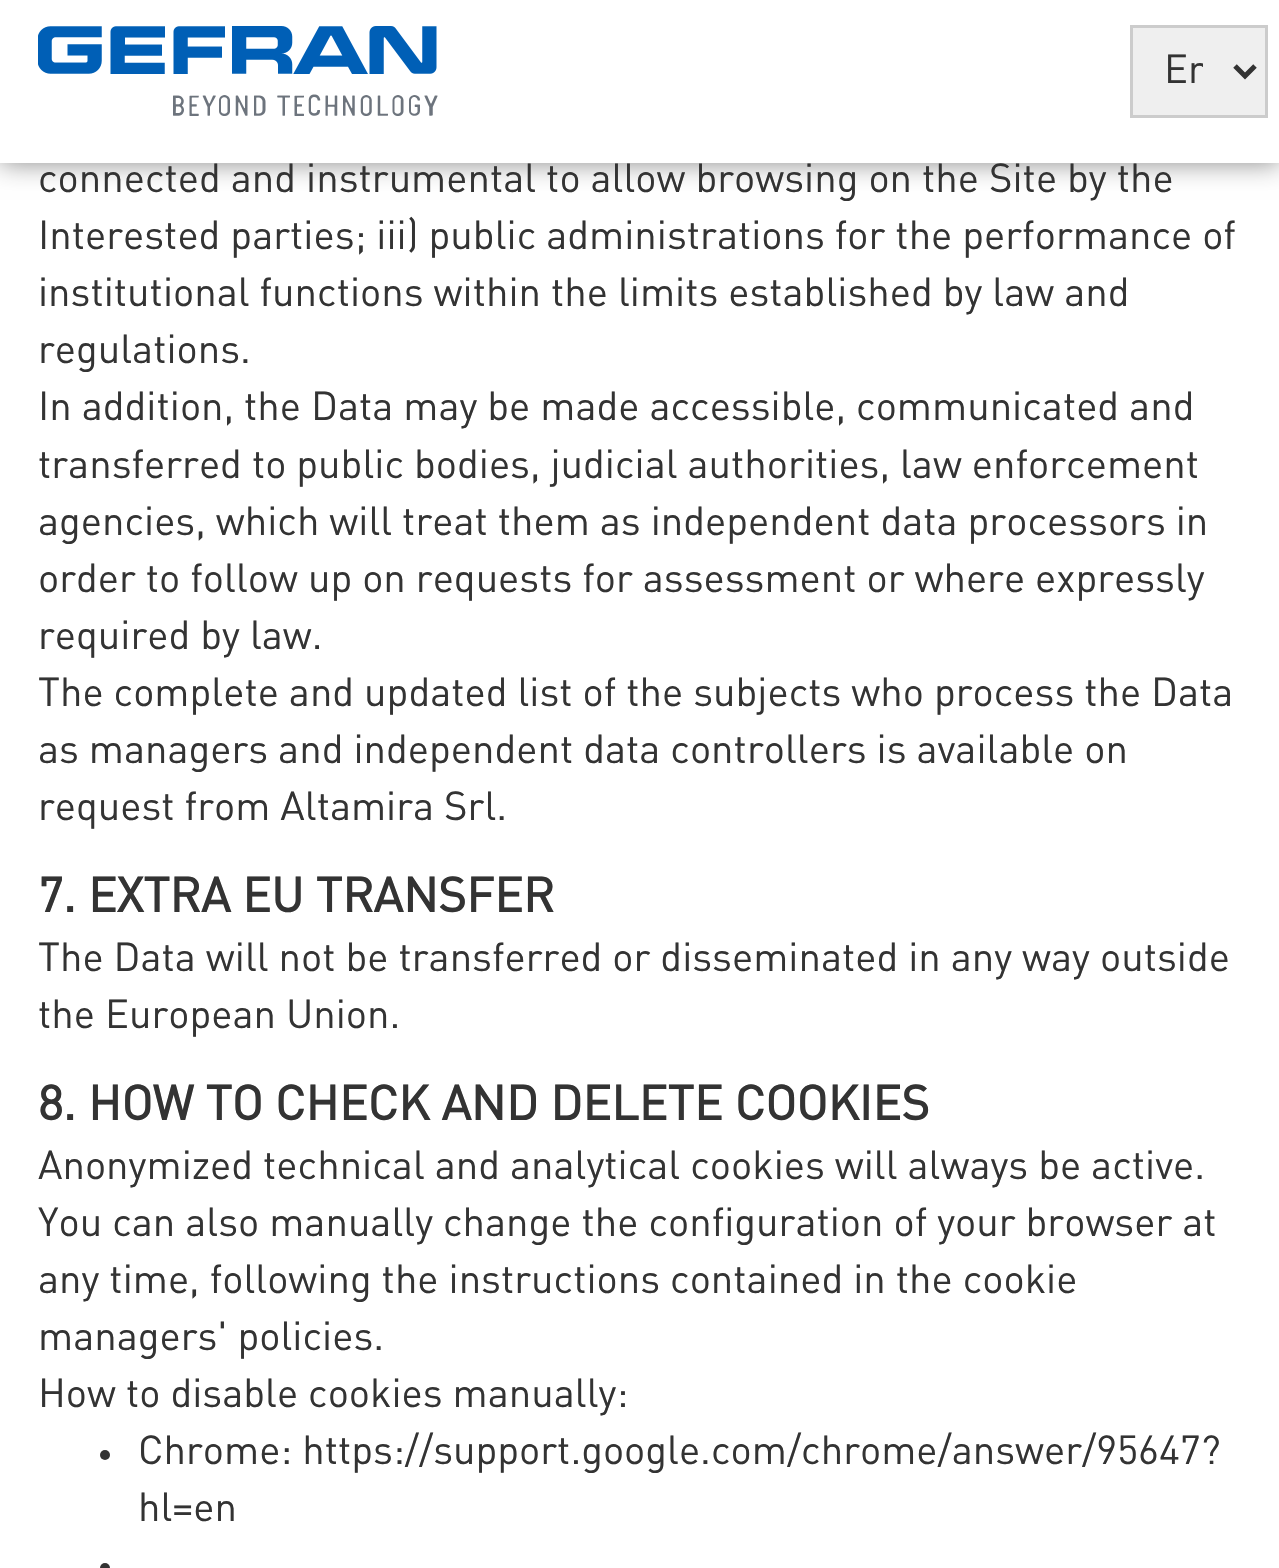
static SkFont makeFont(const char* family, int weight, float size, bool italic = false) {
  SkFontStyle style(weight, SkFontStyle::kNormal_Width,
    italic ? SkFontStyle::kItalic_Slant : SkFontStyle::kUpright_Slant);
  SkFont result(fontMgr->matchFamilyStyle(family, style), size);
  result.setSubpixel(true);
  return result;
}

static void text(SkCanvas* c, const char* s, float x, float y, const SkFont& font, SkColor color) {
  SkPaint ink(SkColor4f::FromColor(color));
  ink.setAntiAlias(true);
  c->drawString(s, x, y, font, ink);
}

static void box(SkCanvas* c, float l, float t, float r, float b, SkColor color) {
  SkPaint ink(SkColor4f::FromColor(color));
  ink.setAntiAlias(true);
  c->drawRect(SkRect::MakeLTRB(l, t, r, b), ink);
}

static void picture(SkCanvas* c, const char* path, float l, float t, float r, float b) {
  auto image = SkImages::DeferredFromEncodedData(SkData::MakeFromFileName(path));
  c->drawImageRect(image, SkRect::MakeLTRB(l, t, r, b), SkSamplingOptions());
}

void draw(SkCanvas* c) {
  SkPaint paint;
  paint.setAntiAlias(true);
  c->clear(0xffffffff);
  paint.setColor(0xff888888);
  paint.setMaskFilter(SkMaskFilter::MakeBlur(kNormal_SkBlurStyle, 12.5f));
  c->drawRect(SkRect::MakeLTRB(0, 0, 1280, 163), paint);
  paint.setMaskFilter(nullptr);
  box(c, 0, 0, 1279, 163, 0xffffffff);
  picture(c, "img_01.png", 38, 26, 438, 116);
  paint.setColor(0xffefefef);
  c->drawRect(SkRect::MakeLTRB(1131.5f, 26.5f, 1266.5f, 116.5f), paint);
  paint.setStyle(SkPaint::kStroke_Style);
  paint.setStrokeWidth(3);
  paint.setColor(0xffcccccc);
  c->drawRect(SkRect::MakeLTRB(1131.5f, 26.5f, 1266.5f, 116.5f), paint);
  paint.setStrokeWidth(5);
  paint.setColor(0xff333333);
  c->drawPath(SkPathBuilder().moveTo(1235, 66).lineTo(1245, 76).lineTo(1255, 66).detach(), paint);
  c->save();
  c->clipRect(SkRect::MakeLTRB(1165, 50, 1203, 93));
  SkFont face1 = makeFont("DIN", 400, 40);
  text(c, "En", 1164, 83, face1, 0xff333333);
  c->restore();
  text(c, "connected and instrumental to allow browsing on the Site by the", 38, 192, face1, 0xff333333);
  text(c, "Interested parties; iii) public administrations for the performance of", 38, 249, face1, 0xff333333);
  text(c, "institutional functions within the limits established by law and", 38, 306, face1, 0xff333333);
  text(c, "regulations.", 38, 363, face1, 0xff333333);
  text(c, "In addition, the Data may be made accessible, communicated and", 38, 420, face1, 0xff333333);
  text(c, "transferred to public bodies, judicial authorities, law enforcement", 38, 478, face1, 0xff333333);
  text(c, "agencies, which will treat them as independent data processors in", 38, 535, face1, 0xff333333);
  text(c, "order to follow up on requests for assessment or where expressly", 38, 592, face1, 0xff333333);
  text(c, "required by law.", 38, 649, face1, 0xff333333);
  text(c, "The complete and updated list of the subjects who process the Data", 38, 706, face1, 0xff333333);
  text(c, "as managers and independent data controllers is available on", 38, 763, face1, 0xff333333);
  text(c, "request from Altamira Srl.", 38, 820, face1, 0xff333333);
  SkFont face2 = makeFont("DIN", 700, 48);
  text(c, "7. EXTRA EU TRANSFER", 38, 912, face2, 0xff333333);
  text(c, "The Data will not be transferred or disseminated in any way outside", 38, 971, face1, 0xff333333);
  text(c, "the European Union.", 38, 1028, face1, 0xff333333);
  text(c, "8. HOW TO CHECK AND DELETE COOKIES", 38, 1120, face2, 0xff333333);
  text(c, "Anonymized technical and analytical cookies will always be active.", 38, 1179, face1, 0xff333333);
  text(c, "You can also manually change the configuration of your browser at", 38, 1236, face1, 0xff333333);
  text(c, "any time, following the instructions contained in the cookie", 38, 1293, face1, 0xff333333);
  text(c, "managers' policies.", 38, 1350, face1, 0xff333333);
  text(c, "How to disable cookies manually:", 38, 1407, face1, 0xff333333);
  paint.setStyle(SkPaint::kFill_Style);
  c->drawCircle(105, 1455, 5, paint);
  text(c, "Chrome: https://support.google.com/chrome/answer/95647?", 138, 1464, face1, 0xff333333);
  text(c, "hl=en", 138, 1521, face1, 0xff333333);
  c->drawCircle(105, 1568, 5, paint);
}
